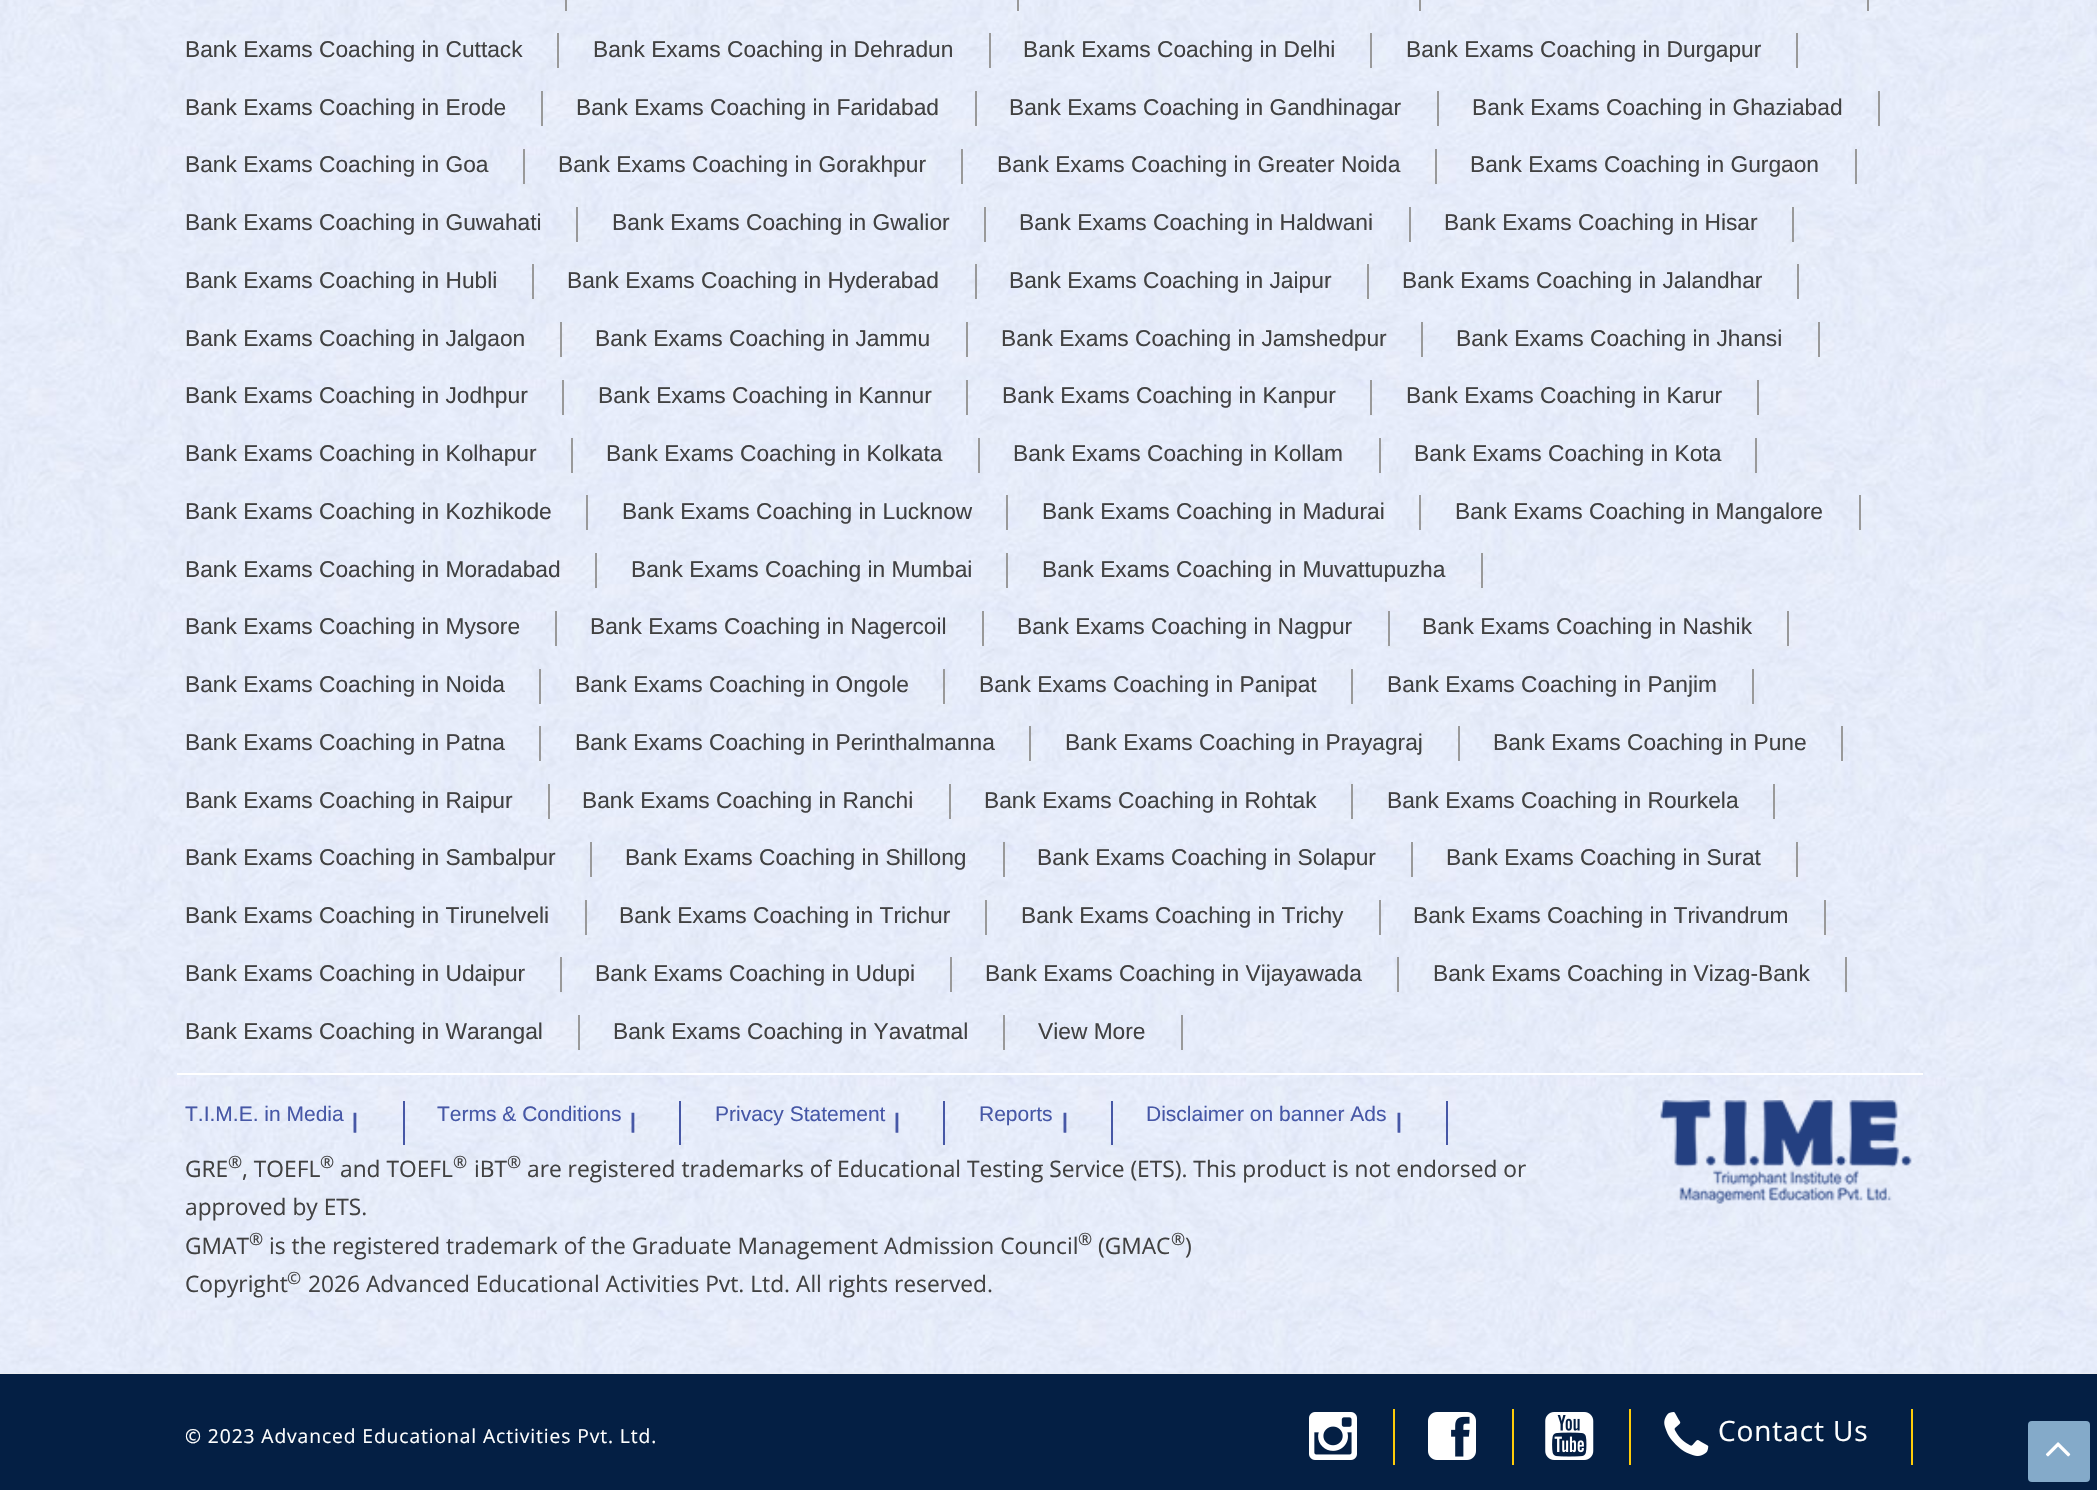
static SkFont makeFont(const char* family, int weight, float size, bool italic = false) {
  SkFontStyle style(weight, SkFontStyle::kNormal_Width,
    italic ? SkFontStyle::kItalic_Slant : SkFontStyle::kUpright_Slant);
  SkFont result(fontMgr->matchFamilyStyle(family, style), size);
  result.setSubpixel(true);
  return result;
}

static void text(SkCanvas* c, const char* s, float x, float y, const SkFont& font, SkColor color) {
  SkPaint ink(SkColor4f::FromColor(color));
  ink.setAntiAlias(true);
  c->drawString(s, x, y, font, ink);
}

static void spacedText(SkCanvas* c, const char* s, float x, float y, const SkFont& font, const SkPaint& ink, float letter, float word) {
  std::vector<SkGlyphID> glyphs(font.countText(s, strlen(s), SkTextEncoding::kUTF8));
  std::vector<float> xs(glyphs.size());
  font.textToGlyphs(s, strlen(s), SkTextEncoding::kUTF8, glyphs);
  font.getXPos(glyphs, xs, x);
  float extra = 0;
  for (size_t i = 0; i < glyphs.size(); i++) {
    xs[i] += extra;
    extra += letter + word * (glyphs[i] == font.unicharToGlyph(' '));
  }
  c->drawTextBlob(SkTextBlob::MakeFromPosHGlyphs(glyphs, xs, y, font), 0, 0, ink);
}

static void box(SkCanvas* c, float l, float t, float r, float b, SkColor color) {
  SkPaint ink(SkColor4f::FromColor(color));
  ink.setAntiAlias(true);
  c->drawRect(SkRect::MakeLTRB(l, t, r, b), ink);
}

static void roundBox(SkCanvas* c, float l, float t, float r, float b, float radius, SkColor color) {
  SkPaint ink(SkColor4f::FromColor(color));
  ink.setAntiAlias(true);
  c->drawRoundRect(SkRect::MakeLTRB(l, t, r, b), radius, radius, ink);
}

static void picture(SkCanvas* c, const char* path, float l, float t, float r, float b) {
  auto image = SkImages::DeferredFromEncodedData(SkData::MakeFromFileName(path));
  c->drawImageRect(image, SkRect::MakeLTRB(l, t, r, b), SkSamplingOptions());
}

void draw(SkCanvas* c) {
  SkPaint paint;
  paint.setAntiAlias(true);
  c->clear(0xffeeeeee);
  picture(c, "img_01.png", 0, 0, 2097, 1374);
  box(c, 565, 0, 567, 11, 0xff999999);
  box(c, 1017, 0, 1019, 11, 0xff999999);
  box(c, 1419, 0, 1421, 11, 0xff999999);
  box(c, 1867, 0, 1869, 11, 0xff999999);
  box(c, 557, 33, 559, 68, 0xff999999);
  SkFont face1 = makeFont("Liberation Sans", 400, 22.75f);
  text(c, "Bank Exams Coaching in Cuttack", 185, 57, face1, 0xff414141);
  box(c, 989, 33, 991, 68, 0xff999999);
  text(c, "Bank Exams Coaching in Dehradun", 593, 57, face1, 0xff414141);
  box(c, 1370, 33, 1372, 68, 0xff999999);
  text(c, "Bank Exams Coaching in Delhi", 1023, 57, face1, 0xff414141);
  box(c, 1796, 33, 1798, 68, 0xff999999);
  text(c, "Bank Exams Coaching in Durgapur", 1406, 57, face1, 0xff414141);
  box(c, 541, 91, 543, 126, 0xff999999);
  text(c, "Bank Exams Coaching in Erode", 185, 115, face1, 0xff414141);
  box(c, 975, 91, 977, 126, 0xff999999);
  text(c, "Bank Exams Coaching in Faridabad", 576, 115, face1, 0xff414141);
  box(c, 1437, 91, 1439, 126, 0xff999999);
  text(c, "Bank Exams Coaching in Gandhinagar", 1009, 115, face1, 0xff414141);
  box(c, 1878, 91, 1880, 126, 0xff999999);
  text(c, "Bank Exams Coaching in Ghaziabad", 1472, 115, face1, 0xff414141);
  box(c, 523, 149, 525, 184, 0xff999999);
  text(c, "Bank Exams Coaching in Goa", 185, 172, face1, 0xff414141);
  box(c, 961, 149, 963, 184, 0xff999999);
  text(c, "Bank Exams Coaching in Gorakhpur", 558, 172, face1, 0xff414141);
  box(c, 1435, 149, 1437, 184, 0xff999999);
  text(c, "Bank Exams Coaching in Greater Noida", 997, 172, face1, 0xff414141);
  box(c, 1855, 149, 1857, 184, 0xff999999);
  text(c, "Bank Exams Coaching in Gurgaon", 1470, 172, face1, 0xff414141);
  box(c, 576, 207, 578, 242, 0xff999999);
  text(c, "Bank Exams Coaching in Guwahati", 185, 230, face1, 0xff414141);
  box(c, 984, 207, 986, 242, 0xff999999);
  text(c, "Bank Exams Coaching in Gwalior", 612, 230, face1, 0xff414141);
  box(c, 1409, 207, 1411, 242, 0xff999999);
  text(c, "Bank Exams Coaching in Haldwani", 1019, 230, face1, 0xff414141);
  box(c, 1792, 207, 1794, 242, 0xff999999);
  text(c, "Bank Exams Coaching in Hisar", 1444, 230, face1, 0xff414141);
  box(c, 532, 264, 534, 299, 0xff999999);
  text(c, "Bank Exams Coaching in Hubli", 185, 288, face1, 0xff414141);
  box(c, 975, 264, 977, 299, 0xff999999);
  text(c, "Bank Exams Coaching in Hyderabad", 567, 288, face1, 0xff414141);
  box(c, 1367, 264, 1369, 299, 0xff999999);
  text(c, "Bank Exams Coaching in Jaipur", 1009, 288, face1, 0xff414141);
  box(c, 1797, 264, 1799, 299, 0xff999999);
  text(c, "Bank Exams Coaching in Jalandhar", 1402, 288, face1, 0xff414141);
  box(c, 560, 322, 562, 357, 0xff999999);
  text(c, "Bank Exams Coaching in Jalgaon", 185, 346, face1, 0xff414141);
  box(c, 966, 322, 968, 357, 0xff999999);
  text(c, "Bank Exams Coaching in Jammu", 595, 346, face1, 0xff414141);
  box(c, 1421, 322, 1423, 357, 0xff999999);
  text(c, "Bank Exams Coaching in Jamshedpur", 1001, 346, face1, 0xff414141);
  box(c, 1818, 322, 1820, 357, 0xff999999);
  text(c, "Bank Exams Coaching in Jhansi", 1456, 346, face1, 0xff414141);
  box(c, 562, 380, 564, 415, 0xff999999);
  text(c, "Bank Exams Coaching in Jodhpur", 185, 403, face1, 0xff414141);
  box(c, 966, 380, 968, 415, 0xff999999);
  text(c, "Bank Exams Coaching in Kannur", 598, 403, face1, 0xff414141);
  box(c, 1370, 380, 1372, 415, 0xff999999);
  text(c, "Bank Exams Coaching in Kanpur", 1002, 403, face1, 0xff414141);
  box(c, 1757, 380, 1759, 415, 0xff999999);
  text(c, "Bank Exams Coaching in Karur", 1406, 403, face1, 0xff414141);
  box(c, 571, 438, 573, 473, 0xff999999);
  text(c, "Bank Exams Coaching in Kolhapur", 185, 461, face1, 0xff414141);
  box(c, 978, 438, 980, 473, 0xff999999);
  text(c, "Bank Exams Coaching in Kolkata", 606, 461, face1, 0xff414141);
  box(c, 1379, 438, 1381, 473, 0xff999999);
  text(c, "Bank Exams Coaching in Kollam", 1013, 461, face1, 0xff414141);
  box(c, 1755, 438, 1757, 473, 0xff999999);
  text(c, "Bank Exams Coaching in Kota", 1414, 461, face1, 0xff414141);
  box(c, 586, 495, 588, 530, 0xff999999);
  text(c, "Bank Exams Coaching in Kozhikode", 185, 519, face1, 0xff414141);
  box(c, 1006, 495, 1008, 530, 0xff999999);
  text(c, "Bank Exams Coaching in Lucknow", 622, 519, face1, 0xff414141);
  box(c, 1419, 495, 1421, 530, 0xff999999);
  text(c, "Bank Exams Coaching in Madurai", 1042, 519, face1, 0xff414141);
  box(c, 1859, 495, 1861, 530, 0xff999999);
  text(c, "Bank Exams Coaching in Mangalore", 1455, 519, face1, 0xff414141);
  box(c, 595, 553, 597, 588, 0xff999999);
  text(c, "Bank Exams Coaching in Moradabad", 185, 577, face1, 0xff414141);
  box(c, 1006, 553, 1008, 588, 0xff999999);
  text(c, "Bank Exams Coaching in Mumbai", 631, 577, face1, 0xff414141);
  box(c, 1481, 553, 1483, 588, 0xff999999);
  text(c, "Bank Exams Coaching in Muvattupuzha", 1042, 577, face1, 0xff414141);
  box(c, 555, 611, 557, 646, 0xff999999);
  text(c, "Bank Exams Coaching in Mysore", 185, 634, face1, 0xff414141);
  box(c, 982, 611, 984, 646, 0xff999999);
  text(c, "Bank Exams Coaching in Nagercoil", 590, 634, face1, 0xff414141);
  box(c, 1388, 611, 1390, 646, 0xff999999);
  text(c, "Bank Exams Coaching in Nagpur", 1017, 634, face1, 0xff414141);
  box(c, 1787, 611, 1789, 646, 0xff999999);
  text(c, "Bank Exams Coaching in Nashik", 1422, 634, face1, 0xff414141);
  box(c, 539, 669, 541, 704, 0xff999999);
  text(c, "Bank Exams Coaching in Noida", 185, 692, face1, 0xff414141);
  box(c, 943, 669, 945, 704, 0xff999999);
  text(c, "Bank Exams Coaching in Ongole", 575, 692, face1, 0xff414141);
  box(c, 1351, 669, 1353, 704, 0xff999999);
  text(c, "Bank Exams Coaching in Panipat", 979, 692, face1, 0xff414141);
  box(c, 1752, 669, 1754, 704, 0xff999999);
  text(c, "Bank Exams Coaching in Panjim", 1387, 692, face1, 0xff414141);
  box(c, 539, 726, 541, 761, 0xff999999);
  text(c, "Bank Exams Coaching in Patna", 185, 750, face1, 0xff414141);
  box(c, 1029, 726, 1031, 761, 0xff999999);
  text(c, "Bank Exams Coaching in Perinthalmanna", 575, 750, face1, 0xff414141);
  box(c, 1458, 726, 1460, 761, 0xff999999);
  text(c, "Bank Exams Coaching in Prayagraj", 1065, 750, face1, 0xff414141);
  box(c, 1841, 726, 1843, 761, 0xff999999);
  text(c, "Bank Exams Coaching in Pune", 1493, 750, face1, 0xff414141);
  box(c, 548, 784, 550, 819, 0xff999999);
  text(c, "Bank Exams Coaching in Raipur", 185, 808, face1, 0xff414141);
  box(c, 949, 784, 951, 819, 0xff999999);
  text(c, "Bank Exams Coaching in Ranchi", 582, 808, face1, 0xff414141);
  box(c, 1351, 784, 1353, 819, 0xff999999);
  text(c, "Bank Exams Coaching in Rohtak", 984, 808, face1, 0xff414141);
  box(c, 1773, 784, 1775, 819, 0xff999999);
  text(c, "Bank Exams Coaching in Rourkela", 1387, 808, face1, 0xff414141);
  box(c, 590, 842, 592, 877, 0xff999999);
  text(c, "Bank Exams Coaching in Sambalpur", 185, 865, face1, 0xff414141);
  box(c, 1003, 842, 1005, 877, 0xff999999);
  text(c, "Bank Exams Coaching in Shillong", 625, 865, face1, 0xff414141);
  box(c, 1411, 842, 1413, 877, 0xff999999);
  text(c, "Bank Exams Coaching in Solapur", 1037, 865, face1, 0xff414141);
  box(c, 1796, 842, 1798, 877, 0xff999999);
  text(c, "Bank Exams Coaching in Surat", 1446, 865, face1, 0xff414141);
  box(c, 585, 900, 587, 935, 0xff999999);
  text(c, "Bank Exams Coaching in Tirunelveli", 185, 923, face1, 0xff414141);
  box(c, 985, 900, 987, 935, 0xff999999);
  text(c, "Bank Exams Coaching in Trichur", 619, 923, face1, 0xff414141);
  box(c, 1379, 900, 1381, 935, 0xff999999);
  text(c, "Bank Exams Coaching in Trichy", 1021, 923, face1, 0xff414141);
  box(c, 1824, 900, 1826, 935, 0xff999999);
  text(c, "Bank Exams Coaching in Trivandrum", 1413, 923, face1, 0xff414141);
  box(c, 560, 957, 562, 992, 0xff999999);
  text(c, "Bank Exams Coaching in Udaipur", 185, 981, face1, 0xff414141);
  box(c, 950, 957, 952, 992, 0xff999999);
  text(c, "Bank Exams Coaching in Udupi", 595, 981, face1, 0xff414141);
  box(c, 1397, 957, 1399, 992, 0xff999999);
  text(c, "Bank Exams Coaching in Vijayawada", 985, 981, face1, 0xff414141);
  box(c, 1845, 957, 1847, 992, 0xff999999);
  text(c, "Bank Exams Coaching in Vizag-Bank", 1433, 981, face1, 0xff414141);
  box(c, 578, 1015, 580, 1050, 0xff999999);
  text(c, "Bank Exams Coaching in Warangal", 185, 1039, face1, 0xff414141);
  box(c, 1003, 1015, 1005, 1050, 0xff999999);
  text(c, "Bank Exams Coaching in Yavatmal", 613, 1039, face1, 0xff414141);
  box(c, 1181, 1015, 1183, 1050, 0xff999999);
  text(c, "View More", 1038, 1039, face1, 0xff414141);
  box(c, 177, 1073, 1923, 1075, 0xffffffff);
  box(c, 403, 1101, 405, 1145, 0xff4657a6);
  SkFont face2 = makeFont("Liberation Sans", 400, 21);
  text(c, "T.I.M.E. in Media", 185, 1121, face2, 0xff4657a6);
  SkFont face3 = makeFont("Liberation Sans", 700, 21);
  text(c, "|", 352, 1128, face3, 0xff4657a6);
  box(c, 679, 1101, 681, 1145, 0xff4657a6);
  text(c, "Terms & Conditions", 437, 1121, face2, 0xff4657a6);
  text(c, "|", 630, 1128, face3, 0xff4657a6);
  box(c, 943, 1101, 945, 1145, 0xff4657a6);
  text(c, "Privacy Statement", 715, 1121, face2, 0xff4657a6);
  text(c, "|", 894, 1128, face3, 0xff4657a6);
  box(c, 1111, 1101, 1113, 1145, 0xff4657a6);
  text(c, "Reports", 979, 1121, face2, 0xff4657a6);
  text(c, "|", 1062, 1128, face3, 0xff4657a6);
  box(c, 1446, 1101, 1448, 1145, 0xff4657a6);
  text(c, "Disclaimer on banner Ads", 1146, 1121, face2, 0xff4657a6);
  text(c, "|", 1396, 1128, face3, 0xff4657a6);
  SkFont face4 = makeFont("Open Sans", 400, 22.75f);
  text(c, "GRE", 185, 1177, face4, 0xff414141);
  SkFont face5 = makeFont("Open Sans", 400, 17);
  text(c, "®", 228, 1168, face5, 0xff414141);
  text(c, ", TOEFL", 242, 1177, face4, 0xff414141);
  text(c, "®", 320, 1168, face5, 0xff414141);
  text(c, "and TOEFL", 340, 1177, face4, 0xff414141);
  text(c, "®", 453, 1168, face5, 0xff414141);
  text(c, "iBT", 474, 1177, face4, 0xff414141);
  text(c, "®", 507, 1168, face5, 0xff414141);
  text(c, "are registered trademarks of Educational Testing Service (ETS). This product is not endorsed or", 527, 1177, face4, 0xff414141);
  text(c, "approved by ETS.", 185, 1215, face4, 0xff414141);
  text(c, "GMAT", 185, 1254, face4, 0xff414141);
  text(c, "®", 249, 1245, face5, 0xff414141);
  text(c, "is the registered trademark of the Graduate Management Admission Council", 269, 1254, face4, 0xff414141);
  text(c, "®", 1078, 1245, face5, 0xff414141);
  text(c, "(GMAC", 1098, 1254, face4, 0xff414141);
  text(c, "®", 1171, 1245, face5, 0xff414141);
  text(c, ")", 1185, 1254, face4, 0xff414141);
  text(c, "Copyright", 185, 1292, face4, 0xff414141);
  text(c, "©", 287, 1284, face5, 0xff414141);
  text(c, "2026 Advanced Educational Activities Pvt. Ltd. All rights reserved.", 308, 1292, face4, 0xff414141);
  picture(c, "img_02.png", 1660, 1100, 1912, 1204);
  box(c, 0, 1374, 2097, 1490, 0xff041f44);
  SkFont face6 = makeFont("Open Sans", 400, 19.25f);
  paint.setColor(0xffffffff);
  spacedText(c, "© 2023 Advanced Educational Activities Pvt. Ltd.", 185, 1443, face6, paint, 0.9f, 0);
  box(c, 1393, 1409, 1395, 1465, 0xffffcb08);
  picture(c, "img_03.png", 1309, 1412, 1357, 1460);
  box(c, 1512, 1409, 1514, 1465, 0xffffcb08);
  picture(c, "img_04.png", 1428, 1412, 1476, 1460);
  box(c, 1629, 1409, 1631, 1465, 0xffffcb08);
  picture(c, "img_05.png", 1545, 1412, 1594, 1460);
  box(c, 1911, 1409, 1913, 1465, 0xffffcb08);
  picture(c, "img_06.png", 1664, 1412, 1709, 1456);
  SkFont face7 = makeFont("Open Sans", 400, 28);
  spacedText(c, "Contact Us", 1718, 1441, face7, paint, 0.9f, 0);
  roundBox(c, 2028, 1421, 2090, 1482, 4, 0xff84aac9);
  picture(c, "img_07.png", 2045, 1442, 2071, 1457);
}
